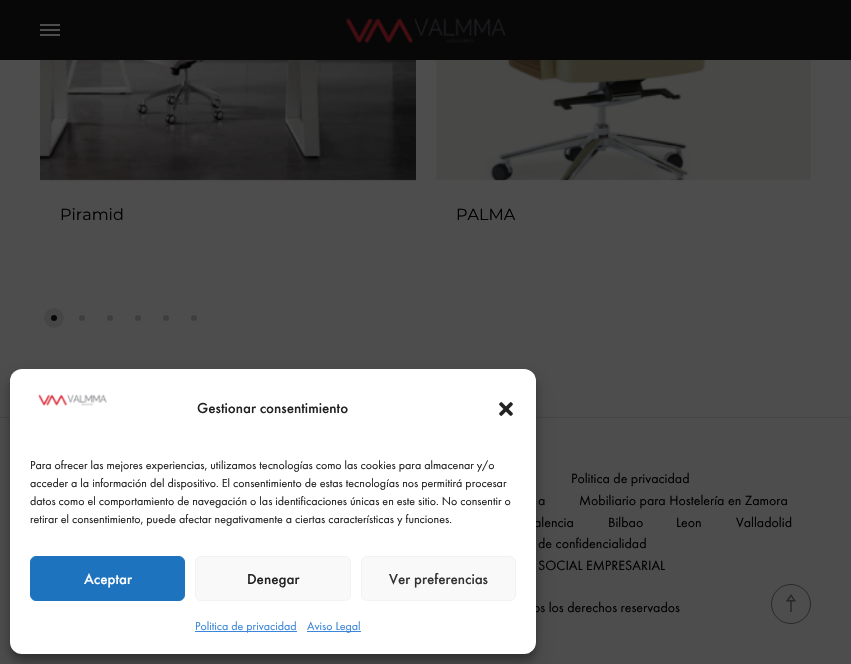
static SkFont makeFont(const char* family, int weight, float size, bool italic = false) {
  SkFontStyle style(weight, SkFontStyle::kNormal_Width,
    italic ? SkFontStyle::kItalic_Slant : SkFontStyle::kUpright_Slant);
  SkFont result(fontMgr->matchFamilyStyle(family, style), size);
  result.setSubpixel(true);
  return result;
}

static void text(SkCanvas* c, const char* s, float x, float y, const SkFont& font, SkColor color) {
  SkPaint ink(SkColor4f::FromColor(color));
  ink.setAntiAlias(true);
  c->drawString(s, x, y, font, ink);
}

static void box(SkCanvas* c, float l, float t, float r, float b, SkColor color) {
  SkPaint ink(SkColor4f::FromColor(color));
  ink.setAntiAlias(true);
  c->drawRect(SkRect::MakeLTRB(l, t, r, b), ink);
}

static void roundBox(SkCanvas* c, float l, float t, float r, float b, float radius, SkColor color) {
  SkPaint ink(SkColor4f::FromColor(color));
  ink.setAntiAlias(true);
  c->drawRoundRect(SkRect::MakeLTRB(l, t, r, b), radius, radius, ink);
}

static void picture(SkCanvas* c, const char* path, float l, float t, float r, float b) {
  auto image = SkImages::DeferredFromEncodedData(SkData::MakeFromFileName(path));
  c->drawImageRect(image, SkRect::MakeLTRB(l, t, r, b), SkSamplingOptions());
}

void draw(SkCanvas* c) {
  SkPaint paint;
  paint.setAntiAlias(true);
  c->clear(0xff4d4d4d);
  box(c, 0, 0, 851, 60, 0xff070708);
  box(c, 40, 29, 60, 31, 0xff4d4d4d);
  box(c, 40, 24, 60, 26, 0xff4d4d4d);
  box(c, 40, 34, 60, 36, 0xff4d4d4d);
  picture(c, "img_01.png", 346, 18, 506, 43);
  picture(c, "img_02.png", 40, 60, 416, 181);
  SkFont face1 = makeFont("Montserrat", 400, 16);
  text(c, "Piramid", 60, 220, face1, 0xff000000);
  picture(c, "img_03.png", 436, 60, 811, 181);
  text(c, "PALMA", 456, 220, face1, 0xff000000);
  paint.setStyle(SkPaint::kStroke_Style);
  paint.setStrokeWidth(7);
  paint.setColor(0xff464646);
  c->drawCircle(54, 318, 6.5f, paint);
  paint.setStyle(SkPaint::kFill_Style);
  paint.setColor(0xff070708);
  c->drawCircle(54, 318, 3, paint);
  paint.setColor(0xff3e3e3e);
  c->drawCircle(82, 318, 3, paint);
  c->drawCircle(110, 318, 3, paint);
  c->drawCircle(138, 318, 3, paint);
  c->drawCircle(166, 318, 3, paint);
  c->drawCircle(194, 318, 3, paint);
  box(c, 0, 417, 851, 418, 0xff444546);
  SkFont face2 = makeFont("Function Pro", 400, 14);
  text(c, "Politica de privacidad", 571, 483, face2, 0xff000000);
  text(c, "a", 538, 505, face2, 0xff000000);
  text(c, "Mobiliario para Hostelería en Zamora", 579, 505, face2, 0xff000000);
  text(c, "alencia", 534, 527, face2, 0xff000000);
  text(c, "Bilbao", 608, 527, face2, 0xff000000);
  text(c, "Leon", 676, 527, face2, 0xff000000);
  text(c, "Valladolid", 736, 527, face2, 0xff000000);
  text(c, "de confidencialidad", 538, 548, face2, 0xff000000);
  text(c, "SOCIAL EMPRESARIAL", 538, 570, face2, 0xff000000);
  text(c, "os los derechos reservados", 533, 612, face2, 0xff000000);
  paint.setColor(0x3b000000);
  paint.setMaskFilter(SkMaskFilter::MakeBlur(kNormal_SkBlurStyle, 3));
  c->drawRoundRect(SkRect::MakeLTRB(10, 375, 536, 660), 12, 12, paint);
  paint.setMaskFilter(nullptr);
  paint.setColor(0x30000000);
  paint.setMaskFilter(SkMaskFilter::MakeBlur(kNormal_SkBlurStyle, 10));
  c->drawRoundRect(SkRect::MakeLTRB(10, 379, 536, 664), 12, 12, paint);
  paint.setMaskFilter(nullptr);
  roundBox(c, 10, 369, 536, 654, 12, 0xffffffff);
  picture(c, "img_04.png", 38, 394, 107, 406);
  SkFont face3 = makeFont("Function Pro", 500, 15);
  text(c, "Gestionar consentimiento", 197, 413, face3, 0xff222222);
  picture(c, "img_05.png", 499, 402, 513, 416);
  SkFont face4 = makeFont("Function Pro", 400, 12);
  text(c, "Para ofrecer las mejores experiencias, utilizamos tecnologías como las cookies para almacenar y/o", 30, 469, face4, 0xff222222);
  text(c, "acceder a la información del dispositivo. El consentimiento de estas tecnologías nos permitirá procesar", 30, 487, face4, 0xff222222);
  text(c, "datos como el comportamiento de navegación o las identificaciones únicas en este sitio. No consentir o", 30, 505, face4, 0xff222222);
  text(c, "retirar el consentimiento, puede afectar negativamente a ciertas características y funciones.", 30, 523, face4, 0xff222222);
  paint.setColor(0xff1e73be);
  c->drawRoundRect(SkRect::MakeLTRB(30.5f, 556.5f, 184.5f, 600.5f), 5.5f, 5.5f, paint);
  paint.setStyle(SkPaint::kStroke_Style);
  paint.setStrokeWidth(1);
  c->drawRoundRect(SkRect::MakeLTRB(30.5f, 556.5f, 184.5f, 600.5f), 5.5f, 5.5f, paint);
  text(c, "Aceptar", 84, 584, face3, 0xffffffff);
  paint.setStyle(SkPaint::kFill_Style);
  paint.setColor(0xfff9f9f9);
  c->drawRoundRect(SkRect::MakeLTRB(195.5f, 556.5f, 350.5f, 600.5f), 5.5f, 5.5f, paint);
  paint.setStyle(SkPaint::kStroke_Style);
  paint.setColor(0xfff2f2f2);
  c->drawRoundRect(SkRect::MakeLTRB(195.5f, 556.5f, 350.5f, 600.5f), 5.5f, 5.5f, paint);
  text(c, "Denegar", 247, 584, face3, 0xff222222);
  paint.setStyle(SkPaint::kFill_Style);
  paint.setColor(0xfff9f9f9);
  c->drawRoundRect(SkRect::MakeLTRB(361.5f, 556.5f, 515.5f, 600.5f), 5.5f, 5.5f, paint);
  paint.setStyle(SkPaint::kStroke_Style);
  paint.setColor(0xfff2f2f2);
  c->drawRoundRect(SkRect::MakeLTRB(361.5f, 556.5f, 515.5f, 600.5f), 5.5f, 5.5f, paint);
  text(c, "Ver preferencias", 389, 584, face3, 0xff333333);
  box(c, 195, 631, 297, 632, 0xff3b86db);
  text(c, "Politica de privacidad", 195, 630, face4, 0xff3b86db);
  box(c, 307, 631, 361, 632, 0xff3b86db);
  text(c, "Aviso Legal", 307, 630, face4, 0xff3b86db);
  paint.setColor(0xff272929);
  c->drawCircle(791, 604, 19.5f, paint);
  picture(c, "img_06.png", 785, 594, 797, 612);
}
